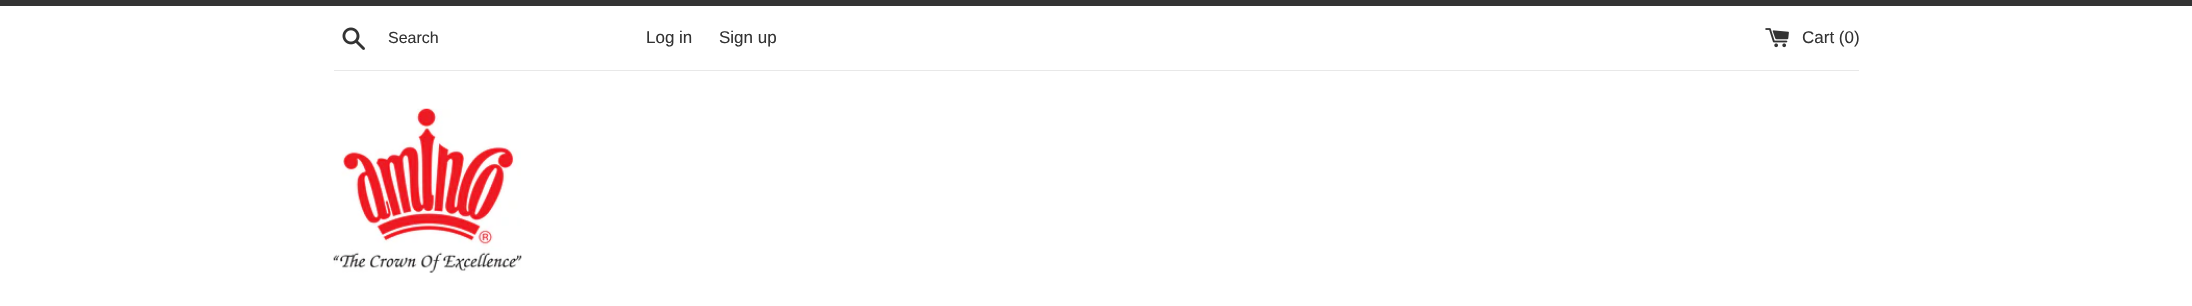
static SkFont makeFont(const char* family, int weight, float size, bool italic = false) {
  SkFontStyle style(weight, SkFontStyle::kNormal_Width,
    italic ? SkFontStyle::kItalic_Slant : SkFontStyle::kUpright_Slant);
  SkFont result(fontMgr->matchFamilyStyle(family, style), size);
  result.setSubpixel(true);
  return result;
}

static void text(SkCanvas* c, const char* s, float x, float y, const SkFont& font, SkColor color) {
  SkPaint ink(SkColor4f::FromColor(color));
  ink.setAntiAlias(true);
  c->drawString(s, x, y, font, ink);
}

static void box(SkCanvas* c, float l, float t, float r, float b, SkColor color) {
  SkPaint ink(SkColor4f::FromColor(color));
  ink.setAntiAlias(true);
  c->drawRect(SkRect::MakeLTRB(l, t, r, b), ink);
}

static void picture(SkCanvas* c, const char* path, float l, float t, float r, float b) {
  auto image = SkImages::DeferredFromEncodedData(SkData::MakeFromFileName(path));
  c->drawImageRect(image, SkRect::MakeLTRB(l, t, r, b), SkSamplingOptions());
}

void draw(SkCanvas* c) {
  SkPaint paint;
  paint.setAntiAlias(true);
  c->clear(0xffffffff);
  box(c, 0, 0, 2192, 6, 0xff333333);
  picture(c, "img_01.png", 342, 27, 365, 50);
  SkFont face1 = makeFont("Liberation Sans", 400, 16);
  text(c, "Search", 388, 43, face1, 0xff333333);
  SkFont face2 = makeFont("Liberation Sans", 400, 17);
  text(c, "Log in", 646, 43, face2, 0xff333333);
  text(c, "Sign up", 719, 43, face2, 0xff333333);
  picture(c, "img_02.png", 1765, 28, 1789, 48);
  text(c, "Cart (0)", 1802, 43, face2, 0xff333333);
  box(c, 334, 70, 1859, 71, 0xffe8e8e8);
  picture(c, "img_03.png", 333, 108, 522, 273);
}
